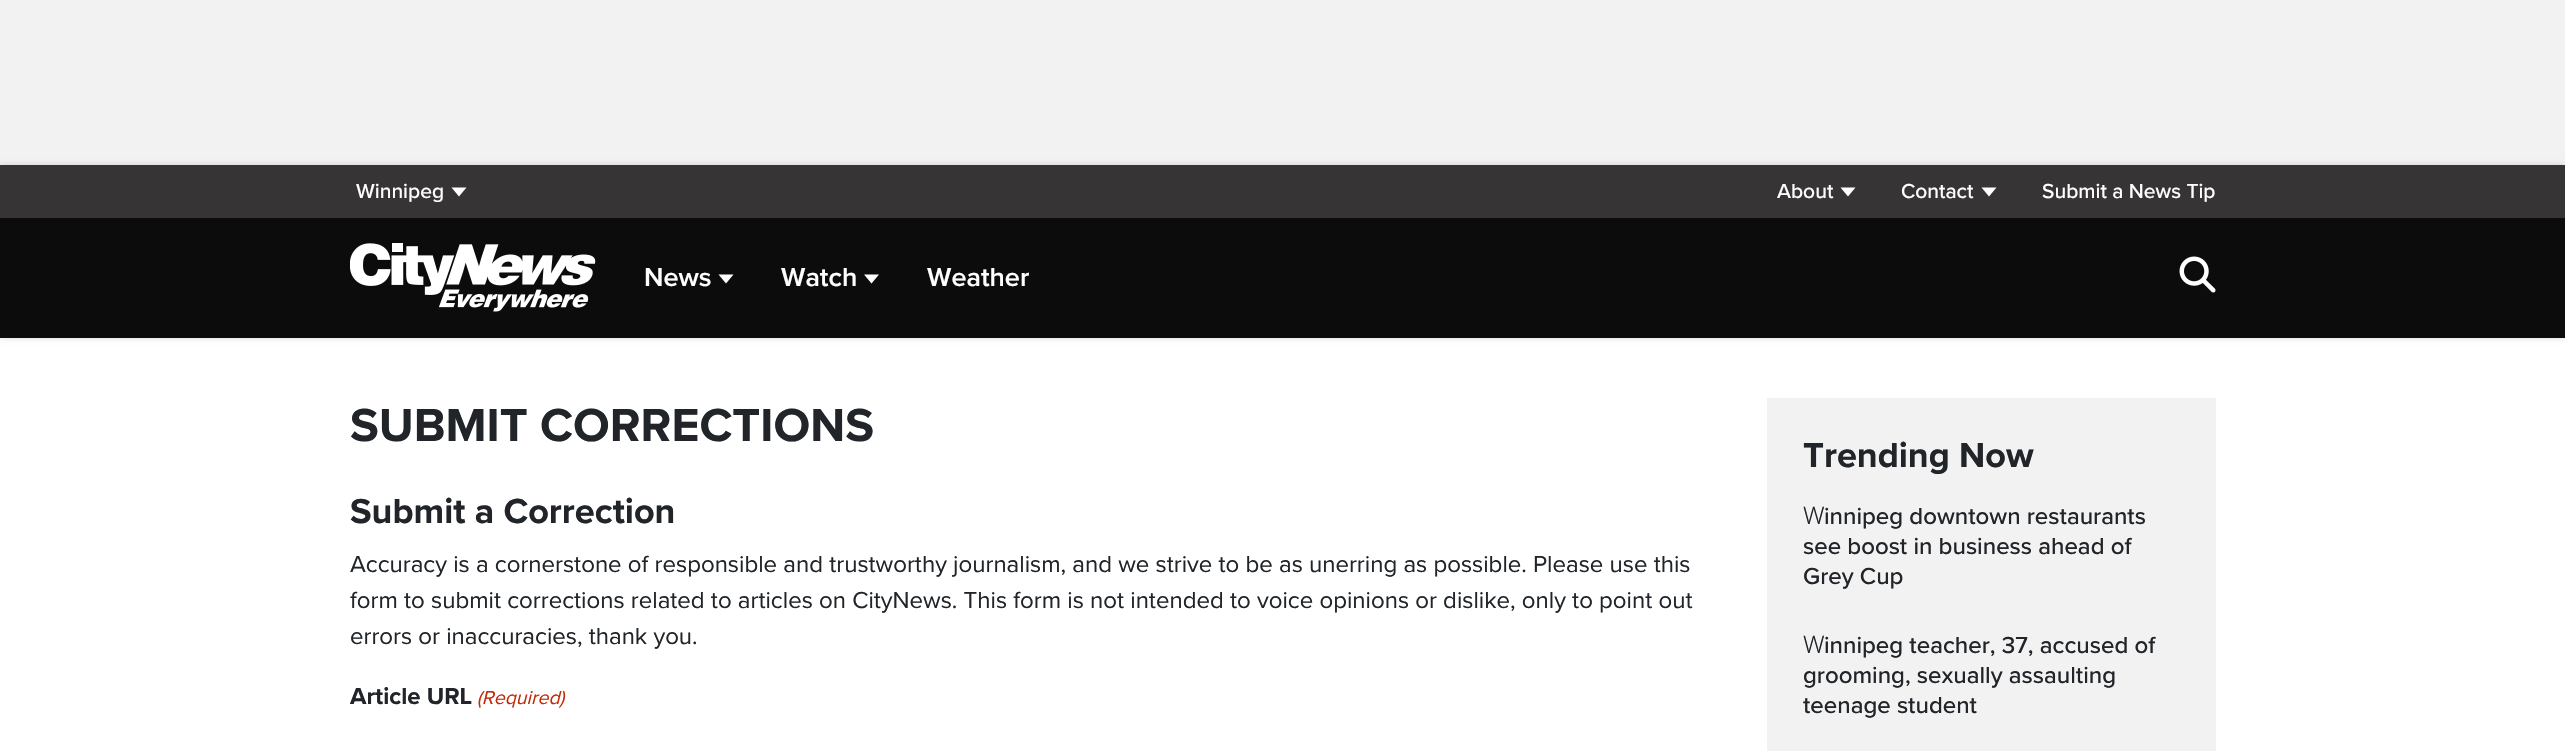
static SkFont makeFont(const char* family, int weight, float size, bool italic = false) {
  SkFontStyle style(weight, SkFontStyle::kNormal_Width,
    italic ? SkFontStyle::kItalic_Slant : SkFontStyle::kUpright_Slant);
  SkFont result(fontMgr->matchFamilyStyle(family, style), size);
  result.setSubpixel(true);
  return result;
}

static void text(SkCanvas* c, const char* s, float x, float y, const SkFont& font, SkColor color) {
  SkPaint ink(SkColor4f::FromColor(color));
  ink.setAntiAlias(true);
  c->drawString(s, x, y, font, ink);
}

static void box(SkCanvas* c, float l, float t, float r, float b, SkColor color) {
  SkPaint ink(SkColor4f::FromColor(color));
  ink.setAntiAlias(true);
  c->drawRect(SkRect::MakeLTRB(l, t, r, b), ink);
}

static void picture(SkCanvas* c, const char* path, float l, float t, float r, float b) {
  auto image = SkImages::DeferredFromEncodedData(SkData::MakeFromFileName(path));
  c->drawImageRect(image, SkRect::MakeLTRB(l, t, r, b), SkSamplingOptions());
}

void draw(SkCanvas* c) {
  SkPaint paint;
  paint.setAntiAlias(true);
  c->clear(0xffffffff);
  box(c, 0, 0, 2565, 165, 0xfff2f2f2);
  paint.setColor(0x26000000);
  paint.setMaskFilter(SkMaskFilter::MakeBlur(kNormal_SkBlurStyle, 3));
  c->drawRect(SkRect::MakeLTRB(0, 165, 2565, 338), paint);
  paint.setMaskFilter(nullptr);
  box(c, 0, 218, 2565, 338, 0xff0c0c0c);
  box(c, 0, 165, 2565, 218, 0xff363434);
  SkFont face1 = makeFont("Proxima Nova", 500, 21);
  text(c, "Winnipeg", 356, 198, face1, 0xffffffff);
  paint.setColor(0xffffffff);
  c->drawPath(SkPathBuilder().moveTo(451.5f, 187.5f).lineTo(466.5f, 187.5f).lineTo(459, 196.5f).close().detach(), paint);
  text(c, "About", 1777, 198, face1, 0xffffffff);
  c->drawPath(SkPathBuilder().moveTo(1840.5f, 187.5f).lineTo(1855.5f, 187.5f).lineTo(1848, 196.5f).close().detach(), paint);
  text(c, "Contact", 1901, 198, face1, 0xffffffff);
  c->drawPath(SkPathBuilder().moveTo(1981.5f, 187.5f).lineTo(1996.5f, 187.5f).lineTo(1989, 196.5f).close().detach(), paint);
  text(c, "Submit a News Tip", 2042, 198, face1, 0xffffffff);
  picture(c, "img_01.png", 350, 243, 596, 312);
  SkFont face2 = makeFont("Proxima Nova", 600, 27);
  text(c, "News", 644, 286, face2, 0xffffffff);
  c->drawPath(SkPathBuilder().moveTo(718.5f, 274.5f).lineTo(733.5f, 274.5f).lineTo(726, 283.5f).close().detach(), paint);
  text(c, "Watch", 781, 286, face2, 0xffffffff);
  c->drawPath(SkPathBuilder().moveTo(864, 274.5f).lineTo(879, 274.5f).lineTo(871.5f, 283.5f).close().detach(), paint);
  text(c, "Weather", 927, 286, face2, 0xffffffff);
  picture(c, "img_02.png", 2179, 256, 2216, 293);
  SkFont face3 = makeFont("Proxima Nova", 700, 48);
  text(c, "SUBMIT CORRECTIONS", 350, 441, face3, 0xff212529);
  SkFont face4 = makeFont("Proxima Nova", 700, 36);
  text(c, "Submit a Correction", 350, 523, face4, 0xff212529);
  SkFont face5 = makeFont("Proxima Nova", 400, 24);
  text(c, "Accuracy is a cornerstone of responsible and trustworthy journalism, and we strive to be as unerring as possible. Please use this", 350, 572, face5, 0xff212529);
  text(c, "form to submit corrections related to articles on CityNews. This form is not intended to voice opinions or dislike, only to point out", 350, 608, face5, 0xff212529);
  text(c, "errors or inaccuracies, thank you.", 350, 644, face5, 0xff212529);
  SkFont face6 = makeFont("Proxima Nova", 700, 24);
  text(c, "Article URL", 350, 704, face6, 0xff212529);
  SkFont face7 = makeFont("Proxima Nova", 400, 19.5f, true);
  text(c, "(Required)", 477, 704, face7, 0xffc02b0a);
  box(c, 1767, 398, 2216, 751, 0xfff2f2f2);
  text(c, "Trending Now", 1803, 467, face4, 0xff212529);
  SkFont face8 = makeFont("Noto Sans", 300, 24);
  text(c, "W", 1803, 524, face8, 0xff212529);
  SkFont face9 = makeFont("Proxima Nova", 500, 24);
  text(c, "innipeg downtown restaurants", 1824, 524, face9, 0xff212529);
  text(c, "see boost in business ahead of", 1803, 554, face9, 0xff212529);
  text(c, "Grey Cup", 1803, 584, face9, 0xff212529);
  text(c, "W", 1803, 653, face8, 0xff212529);
  text(c, "innipeg teacher, 37, accused of", 1824, 653, face9, 0xff212529);
  text(c, "grooming, sexually assaulting", 1803, 683, face9, 0xff212529);
  text(c, "teenage student", 1803, 713, face9, 0xff212529);
}
